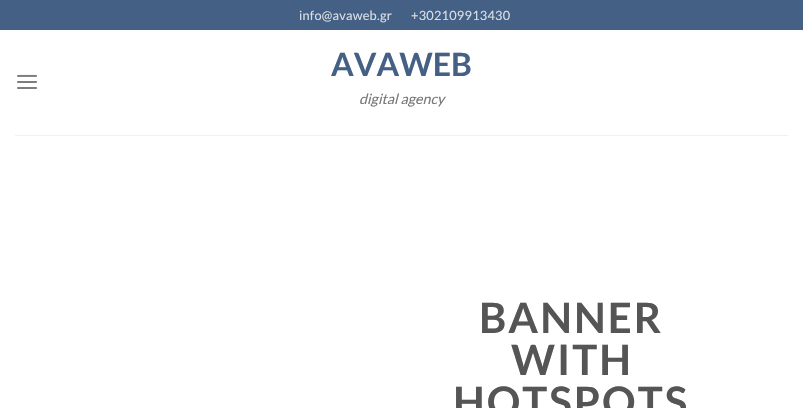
static SkFont makeFont(const char* family, int weight, float size, bool italic = false) {
  SkFontStyle style(weight, SkFontStyle::kNormal_Width,
    italic ? SkFontStyle::kItalic_Slant : SkFontStyle::kUpright_Slant);
  SkFont result(fontMgr->matchFamilyStyle(family, style), size);
  result.setSubpixel(true);
  return result;
}

static void text(SkCanvas* c, const char* s, float x, float y, const SkFont& font, SkColor color) {
  SkPaint ink(SkColor4f::FromColor(color));
  ink.setAntiAlias(true);
  c->drawString(s, x, y, font, ink);
}

static void spacedText(SkCanvas* c, const char* s, float x, float y, const SkFont& font, const SkPaint& ink, float letter, float word) {
  std::vector<SkGlyphID> glyphs(font.countText(s, strlen(s), SkTextEncoding::kUTF8));
  std::vector<float> xs(glyphs.size());
  font.textToGlyphs(s, strlen(s), SkTextEncoding::kUTF8, glyphs);
  font.getXPos(glyphs, xs, x);
  float extra = 0;
  for (size_t i = 0; i < glyphs.size(); i++) {
    xs[i] += extra;
    extra += letter + word * (glyphs[i] == font.unicharToGlyph(' '));
  }
  c->drawTextBlob(SkTextBlob::MakeFromPosHGlyphs(glyphs, xs, y, font), 0, 0, ink);
}

static void box(SkCanvas* c, float l, float t, float r, float b, SkColor color) {
  SkPaint ink(SkColor4f::FromColor(color));
  ink.setAntiAlias(true);
  c->drawRect(SkRect::MakeLTRB(l, t, r, b), ink);
}

static void picture(SkCanvas* c, const char* path, float l, float t, float r, float b) {
  auto image = SkImages::DeferredFromEncodedData(SkData::MakeFromFileName(path));
  c->drawImageRect(image, SkRect::MakeLTRB(l, t, r, b), SkSamplingOptions());
}

void draw(SkCanvas* c) {
  SkPaint paint;
  paint.setAntiAlias(true);
  c->clear(0xffffffff);
  box(c, 0, 0, 803, 30, 0xff446084);
  SkFont face1 = makeFont("Lato", 400, 12.75f);
  paint.setColor(0xffdadfe6);
  spacedText(c, "info@avaweb.gr", 299, 20, face1, paint, 0.25f, 0);
  spacedText(c, "+302109913430", 411, 20, face1, paint, 0.25f, 0);
  picture(c, "img_01.png", 17, 74, 37, 89);
  SkFont face2 = makeFont("Lato", 700, 32);
  text(c, "AVAWEB", 331, 76, face2, 0xff446084);
  SkFont face3 = makeFont("Lato", 400, 14.25f, true);
  text(c, "digital agency", 359, 104, face3, 0xff777777);
  box(c, 15, 135, 788, 136, 0xfff1f1f1);
  SkFont face4 = makeFont("Lato", 700, 42);
  paint.setColor(0xff555555);
  spacedText(c, "BANNER", 479, 333, face4, paint, 2, 0);
  spacedText(c, "WITH", 511, 375, face4, paint, 2, 0);
  spacedText(c, "HOTSPOTS", 453, 417, face4, paint, 2, 0);
}
